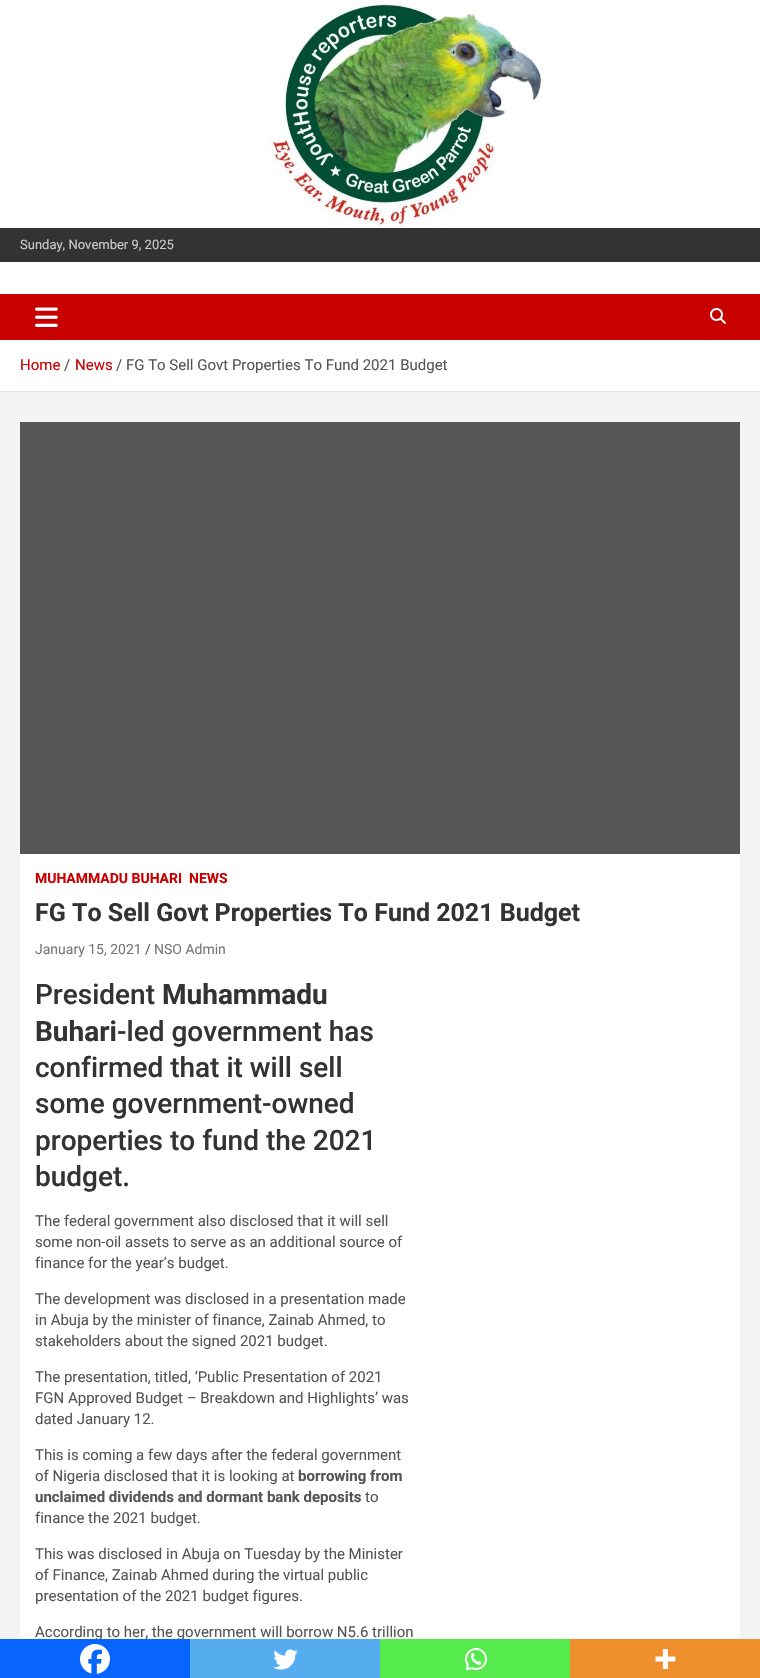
static SkFont makeFont(const char* family, int weight, float size, bool italic = false) {
  SkFontStyle style(weight, SkFontStyle::kNormal_Width,
    italic ? SkFontStyle::kItalic_Slant : SkFontStyle::kUpright_Slant);
  SkFont result(fontMgr->matchFamilyStyle(family, style), size);
  result.setSubpixel(true);
  return result;
}

static void text(SkCanvas* c, const char* s, float x, float y, const SkFont& font, SkColor color) {
  SkPaint ink(SkColor4f::FromColor(color));
  ink.setAntiAlias(true);
  c->drawString(s, x, y, font, ink);
}

static void box(SkCanvas* c, float l, float t, float r, float b, SkColor color) {
  SkPaint ink(SkColor4f::FromColor(color));
  ink.setAntiAlias(true);
  c->drawRect(SkRect::MakeLTRB(l, t, r, b), ink);
}

static void picture(SkCanvas* c, const char* path, float l, float t, float r, float b) {
  auto image = SkImages::DeferredFromEncodedData(SkData::MakeFromFileName(path));
  c->drawImageRect(image, SkRect::MakeLTRB(l, t, r, b), SkSamplingOptions());
}

void draw(SkCanvas* c) {
  SkPaint paint;
  paint.setAntiAlias(true);
  c->clear(0xfff4f4f4);
  picture(c, "img_01.png", 0, 0, 760, 228);
  box(c, 0, 228, 760, 262, 0xff333333);
  SkFont face1 = makeFont("Roboto", 400, 13);
  text(c, "Sunday, November 9, 2025", 20, 249, face1, 0xffcccccc);
  box(c, 0, 262, 760, 294, 0xffffffff);
  box(c, 0, 294, 760, 340, 0xffc80000);
  picture(c, "img_02.png", 35, 307, 58, 327);
  picture(c, "img_03.png", 710, 308, 726, 324);
  box(c, 0, 340, 760, 391, 0xffffffff);
  box(c, 0, 391, 760, 392, 0xffe6e6e6);
  SkFont face2 = makeFont("Roboto", 400, 15);
  text(c, "Home", 20, 370, face2, 0xffc80000);
  text(c, "/", 64, 370, face2, 0xff555555);
  text(c, "News", 75, 370, face2, 0xffc80000);
  text(c, "/ FG To Sell Govt Properties To Fund 2021 Budget", 116, 370, face2, 0xff555555);
  box(c, 20, 854, 740, 1639, 0xffffffff);
  box(c, 20, 422, 740, 854, 0xff555555);
  SkFont face3 = makeFont("Roboto", 700, 14);
  text(c, "MUHAMMADU BUHARI", 35, 883, face3, 0xffc80000);
  text(c, "NEWS", 189, 883, face3, 0xffc80000);
  SkFont face4 = makeFont("Roboto", 700, 25);
  text(c, "FG To Sell Govt Properties To Fund 2021 Budget", 35, 921, face4, 0xff333333);
  SkFont face5 = makeFont("Roboto", 400, 14);
  text(c, "January 15, 2021", 35, 954, face5, 0xff777777);
  text(c, "/", 145, 954, face5, 0xff555555);
  text(c, "NSO Admin", 154, 954, face5, 0xff777777);
  SkFont face6 = makeFont("Roboto", 500, 28);
  text(c, "President", 35, 1004, face6, 0xff333333);
  SkFont face7 = makeFont("Roboto", 700, 28);
  text(c, "Muhammadu", 162, 1004, face7, 0xff333333);
  text(c, "Buhari", 35, 1041, face7, 0xff333333);
  text(c, "-led government has", 117, 1041, face6, 0xff333333);
  text(c, "confirmed that it will sell", 35, 1077, face6, 0xff333333);
  text(c, "some government-owned", 35, 1113, face6, 0xff333333);
  text(c, "properties to fund the 2021", 35, 1150, face6, 0xff333333);
  text(c, "budget.", 35, 1186, face6, 0xff333333);
  text(c, "The federal government also disclosed that it will sell", 35, 1226, face2, 0xff555555);
  text(c, "some non-oil assets to serve as an additional source of", 35, 1247, face2, 0xff555555);
  text(c, "finance for the year’s budget.", 35, 1268, face2, 0xff555555);
  text(c, "The development was disclosed in a presentation made", 35, 1304, face2, 0xff555555);
  text(c, "in Abuja by the minister of finance, Zainab Ahmed, to", 35, 1325, face2, 0xff555555);
  text(c, "stakeholders about the signed 2021 budget.", 35, 1346, face2, 0xff555555);
  text(c, "The presentation, titled, ‘Public Presentation of 2021", 35, 1382, face2, 0xff555555);
  text(c, "FGN Approved Budget – Breakdown and Highlights’ was", 35, 1403, face2, 0xff555555);
  text(c, "dated January 12.", 35, 1424, face2, 0xff555555);
  text(c, "This is coming a few days after the federal government", 35, 1460, face2, 0xff555555);
  text(c, "of Nigeria disclosed that it is looking at", 35, 1481, face2, 0xff555555);
  SkFont face8 = makeFont("Roboto", 700, 15);
  text(c, "borrowing from", 298, 1481, face8, 0xff555555);
  text(c, "unclaimed dividends and dormant bank deposits", 35, 1502, face8, 0xff555555);
  text(c, "to", 365, 1502, face2, 0xff555555);
  text(c, "finance the 2021 budget.", 35, 1523, face2, 0xff555555);
  text(c, "This was disclosed in Abuja on Tuesday by the Minister", 35, 1559, face2, 0xff555555);
  text(c, "of Finance, Zainab Ahmed during the virtual public", 35, 1580, face2, 0xff555555);
  text(c, "presentation of the 2021 budget figures.", 35, 1601, face2, 0xff555555);
  text(c, "According to her, the government will borrow N5.6 trillion", 35, 1637, face2, 0xff555555);
  box(c, 0, 1639, 190, 1678, 0xff0765fe);
  picture(c, "img_04.png", 80, 1644, 110, 1674);
  box(c, 190, 1639, 380, 1678, 0xff55acee);
  picture(c, "img_05.png", 273, 1649, 298, 1670);
  box(c, 380, 1639, 570, 1678, 0xff55eb4c);
  picture(c, "img_06.png", 465, 1648, 487, 1671);
  box(c, 570, 1639, 760, 1678, 0xffee8e2d);
  picture(c, "img_07.png", 655, 1649, 676, 1669);
}
